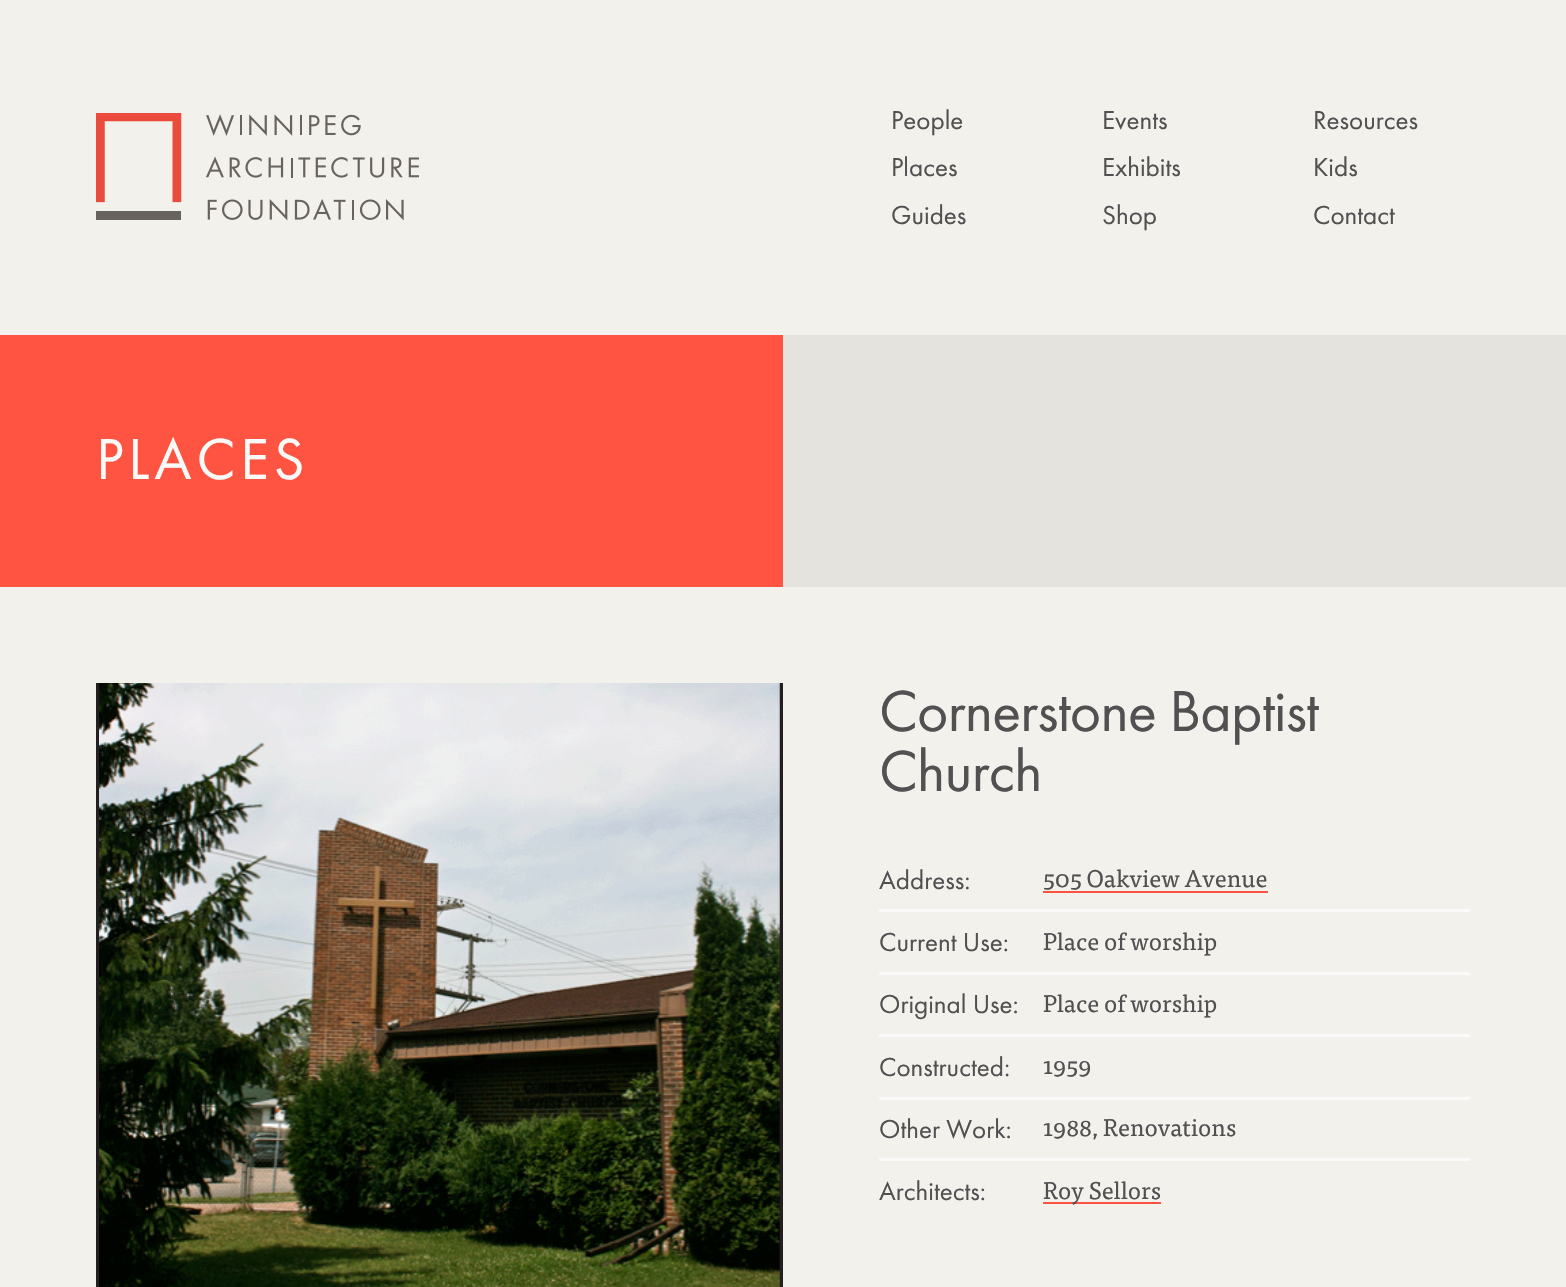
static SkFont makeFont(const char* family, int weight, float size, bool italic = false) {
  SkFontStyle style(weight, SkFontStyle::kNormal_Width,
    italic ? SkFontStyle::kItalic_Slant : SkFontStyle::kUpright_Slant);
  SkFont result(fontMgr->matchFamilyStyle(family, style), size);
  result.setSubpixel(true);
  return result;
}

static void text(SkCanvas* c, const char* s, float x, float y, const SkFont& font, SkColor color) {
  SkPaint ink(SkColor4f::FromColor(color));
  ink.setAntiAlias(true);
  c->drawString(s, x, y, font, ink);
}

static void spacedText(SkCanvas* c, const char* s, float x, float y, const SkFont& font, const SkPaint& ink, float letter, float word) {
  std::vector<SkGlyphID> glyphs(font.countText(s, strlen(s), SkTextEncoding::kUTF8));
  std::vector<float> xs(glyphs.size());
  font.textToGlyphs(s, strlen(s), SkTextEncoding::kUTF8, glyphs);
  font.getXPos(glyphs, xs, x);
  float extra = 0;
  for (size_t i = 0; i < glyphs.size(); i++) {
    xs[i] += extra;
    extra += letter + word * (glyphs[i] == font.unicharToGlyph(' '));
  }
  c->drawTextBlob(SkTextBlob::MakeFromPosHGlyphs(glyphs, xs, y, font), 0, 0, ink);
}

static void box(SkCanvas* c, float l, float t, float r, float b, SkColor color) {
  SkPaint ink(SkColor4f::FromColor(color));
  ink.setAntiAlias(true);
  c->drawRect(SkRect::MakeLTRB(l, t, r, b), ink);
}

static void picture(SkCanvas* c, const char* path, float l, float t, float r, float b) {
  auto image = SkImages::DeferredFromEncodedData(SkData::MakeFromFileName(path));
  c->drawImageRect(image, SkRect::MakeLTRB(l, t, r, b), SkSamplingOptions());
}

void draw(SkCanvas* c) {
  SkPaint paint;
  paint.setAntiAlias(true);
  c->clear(0xfff2f1ec);
  picture(c, "img_01.png", 96, 113, 419, 221);
  SkFont face1 = makeFont("Futura PT", 400, 27);
  text(c, "People", 891, 129, face1, 0xff525051);
  text(c, "Places", 891, 176, face1, 0xff525051);
  text(c, "Guides", 891, 224, face1, 0xff525051);
  text(c, "Events", 1102, 129, face1, 0xff525051);
  text(c, "Exhibits", 1102, 176, face1, 0xff525051);
  text(c, "Shop", 1102, 224, face1, 0xff525051);
  text(c, "Resources", 1313, 129, face1, 0xff525051);
  text(c, "Kids", 1313, 176, face1, 0xff525051);
  text(c, "Contact", 1313, 224, face1, 0xff525051);
  box(c, 0, 335, 783, 587, 0xffff5442);
  SkFont face2 = makeFont("Futura PT", 400, 60);
  paint.setColor(0xfffafbf8);
  spacedText(c, "PLACES", 96, 479, face2, paint, 4.75f, 0);
  box(c, 783, 335, 1566, 587, 0xffe4e3de);
  box(c, 96, 683, 783, 1287, 0xff231f20);
  picture(c, "img_02.png", 99, 683, 780, 1287);
  paint.setColor(0xff525051);
  spacedText(c, "Cornerstone Baptist", 879, 731, face2, paint, -0.75f, 0);
  spacedText(c, "Church", 879, 791, face2, paint, -0.75f, 0);
  box(c, 879, 909, 1470, 912, 0xfffafbf8);
  text(c, "Address:", 879, 889, face1, 0xff525051);
  SkFont face3 = makeFont("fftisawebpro", 400, 24);
  text(c, "505 Oakview Avenue", 1043, 887, face3, 0xff525051);
  box(c, 1043, 891, 1268, 893, 0xffff5442);
  box(c, 879, 972, 1470, 975, 0xfffafbf8);
  text(c, "Current Use:", 879, 951, face1, 0xff525051);
  text(c, "Place of worship", 1043, 950, face3, 0xff525051);
  box(c, 879, 1034, 1470, 1037, 0xfffafbf8);
  text(c, "Original Use:", 879, 1013, face1, 0xff525051);
  text(c, "Place of worship", 1043, 1012, face3, 0xff525051);
  box(c, 879, 1097, 1470, 1100, 0xfffafbf8);
  text(c, "Constructed:", 879, 1076, face1, 0xff525051);
  text(c, "1959", 1043, 1074, face3, 0xff525051);
  box(c, 879, 1158, 1470, 1161, 0xfffafbf8);
  text(c, "Other Work:", 879, 1138, face1, 0xff525051);
  text(c, "1988, Renovations", 1043, 1136, face3, 0xff525051);
  text(c, "Architects:", 879, 1200, face1, 0xff525051);
  box(c, 1043, 1202, 1161, 1204, 0xffff5442);
  text(c, "Roy Sellors", 1043, 1199, face3, 0xff525051);
}
